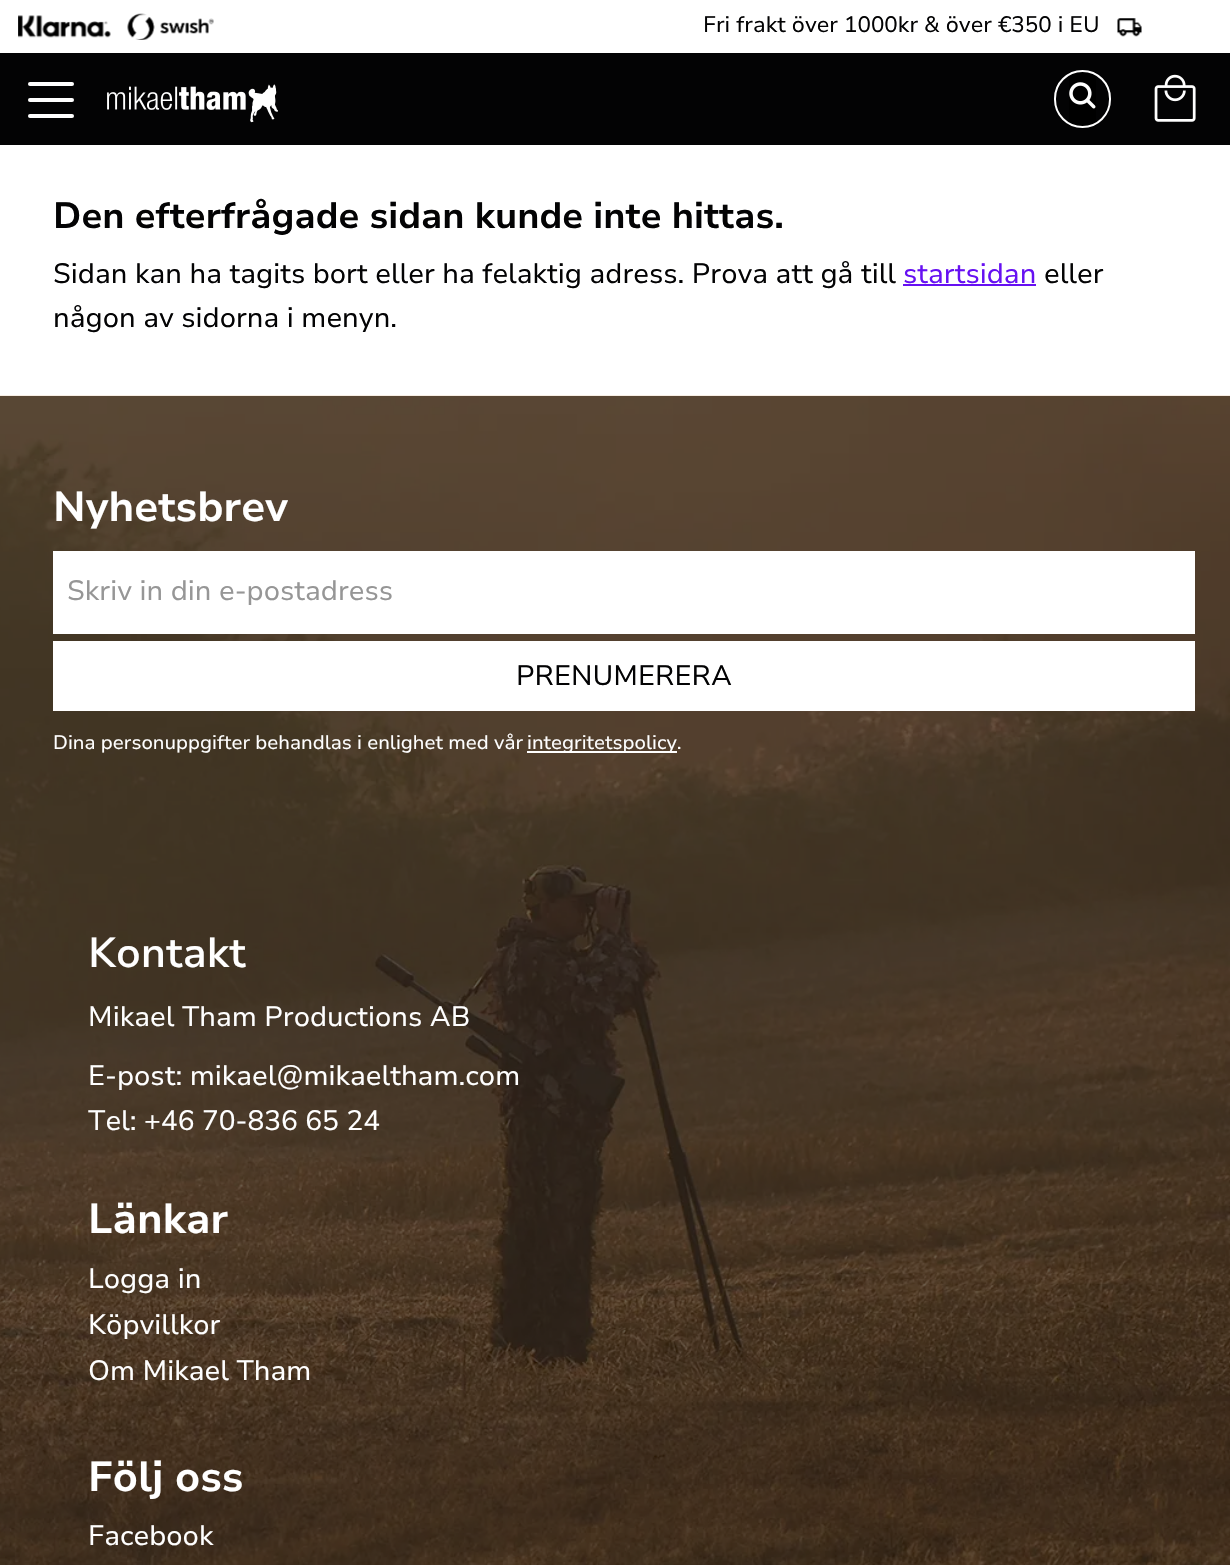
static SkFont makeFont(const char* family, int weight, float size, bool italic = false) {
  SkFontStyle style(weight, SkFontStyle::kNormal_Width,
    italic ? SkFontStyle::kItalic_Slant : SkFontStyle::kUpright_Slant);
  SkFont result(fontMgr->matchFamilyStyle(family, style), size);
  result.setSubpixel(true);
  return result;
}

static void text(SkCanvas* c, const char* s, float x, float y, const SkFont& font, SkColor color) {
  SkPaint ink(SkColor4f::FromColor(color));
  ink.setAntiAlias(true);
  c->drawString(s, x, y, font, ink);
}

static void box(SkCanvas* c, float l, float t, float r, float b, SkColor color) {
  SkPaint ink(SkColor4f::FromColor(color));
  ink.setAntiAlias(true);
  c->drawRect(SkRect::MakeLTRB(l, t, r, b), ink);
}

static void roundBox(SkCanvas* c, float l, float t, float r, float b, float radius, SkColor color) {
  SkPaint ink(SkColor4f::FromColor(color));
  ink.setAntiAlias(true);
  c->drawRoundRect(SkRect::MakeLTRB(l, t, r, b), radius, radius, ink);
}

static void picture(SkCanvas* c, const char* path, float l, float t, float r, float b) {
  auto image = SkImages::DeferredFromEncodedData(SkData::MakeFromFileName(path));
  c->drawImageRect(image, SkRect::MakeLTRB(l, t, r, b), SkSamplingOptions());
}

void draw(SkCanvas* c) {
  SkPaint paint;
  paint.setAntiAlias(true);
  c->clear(0xffffffff);
  picture(c, "img_01.png", 18, 15, 111, 38);
  picture(c, "img_02.png", 127, 13, 214, 40);
  SkFont face1 = makeFont("Nunito Sans", 400, 22.4f);
  text(c, "Fri frakt över 1000kr & över €350 i EU", 703, 32, face1, 0xff030304);
  picture(c, "img_03.png", 1117, 18, 1142, 37);
  box(c, 0, 53, 1230, 145, 0xff030304);
  picture(c, "img_04.png", 107, 84, 278, 123);
  box(c, 1069, 72, 1096, 126, 0xff000000);
  picture(c, "img_05.png", 1069, 82, 1096, 109);
  paint.setStyle(SkPaint::kStroke_Style);
  paint.setStrokeWidth(2);
  paint.setColor(0xffffffff);
  c->drawRoundRect(SkRect::MakeLTRB(1055, 71, 1110, 127), 27.5f, 27.5f, paint);
  picture(c, "img_06.png", 1154, 74, 1196, 122);
  roundBox(c, 28, 98, 74, 102, 2, 0xffffffff);
  roundBox(c, 28, 82, 74, 86, 2, 0xffffffff);
  roundBox(c, 28, 114, 74, 118, 2, 0xffffffff);
  SkFont face2 = makeFont("Nunito Sans", 700, 36.4f);
  text(c, "Den efterfrågade sidan kunde inte hittas.", 53, 228, face2, 0xff030304);
  SkFont face3 = makeFont("Nunito Sans", 400, 28);
  text(c, "Sidan kan ha tagits bort eller ha felaktig adress. Prova att gå till", 53, 283, face3, 0xff030304);
  text(c, "startsidan", 903, 283, face3, 0xff6610f2);
  box(c, 903, 284, 1036, 286, 0xff6610f2);
  text(c, "eller", 1044, 283, face3, 0xff030304);
  text(c, "någon av sidorna i menyn.", 53, 327, face3, 0xff030304);
  box(c, 0, 396, 1230, 1565, 0xff030304);
  picture(c, "img_07.png", 0, 395, 1230, 1565);
  SkFont face4 = makeFont("Nunito Sans", 700, 42);
  text(c, "Nyhetsbrev", 53, 521, face4, 0xffffffff);
  box(c, 53, 551, 1195, 634, 0xffffffff);
  text(c, "Skriv in din e-postadress", 67, 600, face3, 0xff969696);
  box(c, 53, 641, 1195, 711, 0xffffffff);
  text(c, "PRENUMERERA", 516, 685, face3, 0xff030304);
  SkFont face5 = makeFont("Nunito Sans", 400, 19.6f);
  text(c, "Dina personuppgifter behandlas i enlighet med vår", 53, 749, face5, 0xffffffff);
  box(c, 527, 751, 677, 753, 0xffffffff);
  text(c, "integritetspolicy.", 527, 749, face5, 0xffffffff);
  SkFont face6 = makeFont("Nunito Sans", 600, 42);
  text(c, "Kontakt", 88, 967, face6, 0xffffffff);
  text(c, "Mikael Tham Productions AB", 88, 1026, face3, 0xffffffff);
  text(c, "E-post: mikael@mikaeltham.com", 88, 1085, face3, 0xffffffff);
  text(c, "Tel: +46 70-836 65 24", 88, 1130, face3, 0xffffffff);
  text(c, "Länkar", 88, 1233, face4, 0xffffffff);
  text(c, "Logga in", 88, 1288, face3, 0xffffffff);
  text(c, "Köpvillkor", 88, 1334, face3, 0xffffffff);
  text(c, "Om Mikael Tham", 88, 1380, face3, 0xffffffff);
  text(c, "Följ oss", 88, 1491, face4, 0xffffffff);
  text(c, "Facebook", 88, 1545, face3, 0xffffffff);
}
